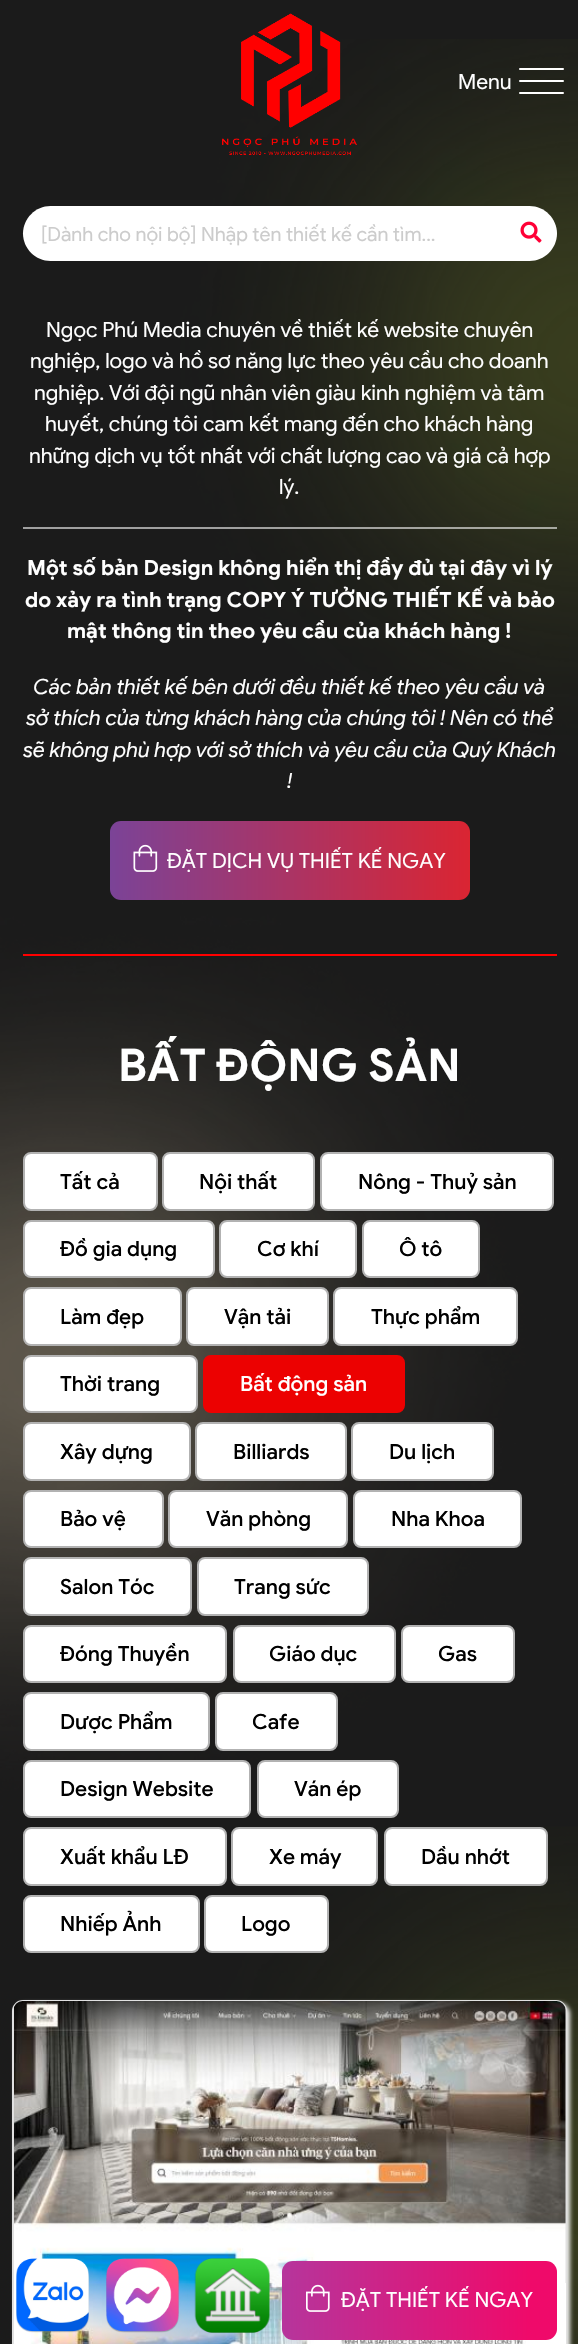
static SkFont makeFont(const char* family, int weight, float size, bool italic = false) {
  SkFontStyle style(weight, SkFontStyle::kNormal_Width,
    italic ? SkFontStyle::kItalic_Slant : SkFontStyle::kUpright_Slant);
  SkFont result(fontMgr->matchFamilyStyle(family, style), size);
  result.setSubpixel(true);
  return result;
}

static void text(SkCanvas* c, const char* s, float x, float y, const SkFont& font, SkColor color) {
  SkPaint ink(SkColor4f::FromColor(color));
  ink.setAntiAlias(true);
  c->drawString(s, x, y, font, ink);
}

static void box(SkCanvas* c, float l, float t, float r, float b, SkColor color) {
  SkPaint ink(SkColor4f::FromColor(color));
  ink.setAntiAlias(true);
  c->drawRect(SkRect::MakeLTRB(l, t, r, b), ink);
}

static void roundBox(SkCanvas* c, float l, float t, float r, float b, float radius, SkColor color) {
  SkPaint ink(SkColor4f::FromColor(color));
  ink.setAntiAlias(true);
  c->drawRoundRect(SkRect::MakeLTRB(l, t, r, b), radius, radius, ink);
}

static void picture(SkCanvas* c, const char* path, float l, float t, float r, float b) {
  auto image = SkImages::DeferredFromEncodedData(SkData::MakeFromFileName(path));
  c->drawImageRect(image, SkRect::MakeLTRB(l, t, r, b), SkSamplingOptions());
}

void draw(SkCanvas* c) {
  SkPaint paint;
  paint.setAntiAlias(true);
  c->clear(0xff1b1b1b);
  picture(c, "img_01.png", 0, 39, 578, 2344);
  picture(c, "img_02.png", 222, 13, 357, 155);
  SkFont face1 = makeFont("Google Sans", 400, 21);
  text(c, "Menu", 458, 89, face1, 0xffffffff);
  roundBox(c, 519, 68, 564, 70, 1, 0xffffffff);
  roundBox(c, 519, 80, 564, 82, 1, 0xffffffff);
  roundBox(c, 519, 92, 564, 94, 1, 0xffffffff);
  paint.setColor(0xffffffff);
  c->drawPath(SkPathBuilder().moveTo(50.5f, 206).lineTo(504, 206).lineTo(504, 261).lineTo(50.5f, 261).cubicTo(35.5f, 261, 23, 248.5f, 23, 233.5f).cubicTo(23, 218.5f, 35.5f, 206, 50.5f, 206).close().detach(), paint);
  SkFont face2 = makeFont("Google Sans", 400, 19.5f);
  text(c, "[Dành cho nội bộ] Nhập tên thiết kế cần tìm...", 41, 241, face2, 0xffcccccc);
  c->drawPath(SkPathBuilder().moveTo(504, 206).lineTo(529.5f, 206).cubicTo(544.5f, 206, 557, 218.5f, 557, 233.5f).cubicTo(557, 248.5f, 544.5f, 261, 529.5f, 261).lineTo(504, 261).close().detach(), paint);
  picture(c, "img_03.png", 520, 221, 542, 243);
  box(c, 23, 954, 557, 956, 0xffff0000);
  text(c, "Ngọc Phú Media chuyên về thiết kế website chuyên", 46, 337, face1, 0xffffffff);
  text(c, "nghiệp, logo và hồ sơ năng lực theo yêu cầu cho doanh", 30, 368, face1, 0xffffffff);
  text(c, "nghiệp. Với đội ngũ nhân viên giàu kinh nghiệm và tâm", 34, 400, face1, 0xffffffff);
  text(c, "huyết, chúng tôi cam kết mang đến cho khách hàng", 45, 431, face1, 0xffffffff);
  text(c, "những dịch vụ tốt nhất với chất lượng cao và giá cả hợp", 29, 463, face1, 0xffffffff);
  text(c, "lý.", 279, 494, face1, 0xffffffff);
  box(c, 23, 527, 557, 529, 0x94ffffff);
  SkFont face3 = makeFont("Google Sans", 700, 21);
  text(c, "Một số bản Design không hiển thị đầy đủ tại đây vì lý", 27, 575, face3, 0xffffffff);
  text(c, "do xảy ra tình trạng COPY Ý TƯỞNG THIẾT KẾ và bảo", 25, 607, face3, 0xffffffff);
  text(c, "mật thông tin theo yêu cầu của khách hàng !", 67, 638, face3, 0xffffffff);
  SkFont face4 = makeFont("Google Sans", 400, 21, true);
  text(c, "Các bản thiết kế bên dưới đều thiết kế theo yêu cầu và", 33, 694, face4, 0xffffffff);
  text(c, "sở thích của từng khách hàng của chúng tôi ! Nên có thể", 26, 725, face4, 0xffffffff);
  text(c, "sẽ không phù hợp với sở thích và yêu cầu của Quý Khách", 23, 757, face4, 0xffffffff);
  text(c, "!", 287, 788, face4, 0xffffffff);
  {
    const SkColor colors[] = {0xff7b4397, 0xffdc2430, 0xff7b4397};
    const float stops[] = {0, 0.51f, 1};
    const SkPoint ends[] = {{110, 860}, {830, 860}};
    paint.setShader(SkGradientShader::MakeLinear(ends, colors, stops, 3, SkTileMode::kClamp));
    paint.setAlpha(255);
  }
  c->drawRoundRect(SkRect::MakeLTRB(110, 821, 470, 900), 11, 11, paint);
  picture(c, "img_04.png", 133, 844, 158, 872);
  text(c, "ĐẶT DỊCH VỤ THIẾT KẾ NGAY", 167, 868, face1, 0xffffffff);
  paint.setShader(nullptr);
  paint.setColor(0xfff1f1f1);
  paint.setMaskFilter(SkMaskFilter::MakeBlur(kNormal_SkBlurStyle, 2));
  c->drawRoundRect(SkRect::MakeLTRB(15, 2003, 570, 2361), 11, 11, paint);
  paint.setMaskFilter(nullptr);
  paint.setStyle(SkPaint::kStroke_Style);
  paint.setStrokeWidth(2);
  paint.setColor(0xffe1e1e1);
  c->drawRoundRect(SkRect::MakeLTRB(13, 2001, 566, 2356), 10, 10, paint);
  picture(c, "img_08.png", 14, 2001, 566, 2344);
  picture(c, "img_05.png", 16, 2258, 89, 2333);
  picture(c, "img_06.png", 106, 2258, 179, 2333);
  picture(c, "img_07.png", 194, 2258, 270, 2333);
  SkFont face5 = makeFont("Google Sans", 700, 45);
  text(c, "BẤT ĐỘNG SẢN", 118, 1081, face5, 0xffffffff);
  paint.setStyle(SkPaint::kFill_Style);
  paint.setColor(0xffffffff);
  c->drawRoundRect(SkRect::MakeLTRB(24, 1153, 157, 1210), 7, 7, paint);
  paint.setStyle(SkPaint::kStroke_Style);
  paint.setColor(0xffb2b2b2);
  c->drawRoundRect(SkRect::MakeLTRB(24, 1153, 157, 1210), 7, 7, paint);
  SkFont face6 = makeFont("Google Sans", 500, 21);
  text(c, "Tất cả", 60, 1189, face6, 0xff000000);
  paint.setStyle(SkPaint::kFill_Style);
  paint.setColor(0xffffffff);
  c->drawRoundRect(SkRect::MakeLTRB(163, 1153, 314, 1210), 7, 7, paint);
  paint.setStyle(SkPaint::kStroke_Style);
  paint.setColor(0xffb2b2b2);
  c->drawRoundRect(SkRect::MakeLTRB(163, 1153, 314, 1210), 7, 7, paint);
  text(c, "Nội thất", 199, 1189, face6, 0xff000000);
  paint.setStyle(SkPaint::kFill_Style);
  paint.setColor(0xffffffff);
  c->drawRoundRect(SkRect::MakeLTRB(321, 1153, 553, 1210), 7, 7, paint);
  paint.setStyle(SkPaint::kStroke_Style);
  paint.setColor(0xffb2b2b2);
  c->drawRoundRect(SkRect::MakeLTRB(321, 1153, 553, 1210), 7, 7, paint);
  text(c, "Nông - Thuỷ sản", 358, 1189, face6, 0xff000000);
  paint.setStyle(SkPaint::kFill_Style);
  paint.setColor(0xffffffff);
  c->drawRoundRect(SkRect::MakeLTRB(24, 1221, 214, 1277), 7, 7, paint);
  paint.setStyle(SkPaint::kStroke_Style);
  paint.setColor(0xffb2b2b2);
  c->drawRoundRect(SkRect::MakeLTRB(24, 1221, 214, 1277), 7, 7, paint);
  text(c, "Đồ gia dụng", 60, 1256, face6, 0xff000000);
  paint.setStyle(SkPaint::kFill_Style);
  paint.setColor(0xffffffff);
  c->drawRoundRect(SkRect::MakeLTRB(220, 1221, 356, 1277), 7, 7, paint);
  paint.setStyle(SkPaint::kStroke_Style);
  paint.setColor(0xffb2b2b2);
  c->drawRoundRect(SkRect::MakeLTRB(220, 1221, 356, 1277), 7, 7, paint);
  text(c, "Cơ khí", 257, 1256, face6, 0xff000000);
  paint.setStyle(SkPaint::kFill_Style);
  paint.setColor(0xffffffff);
  c->drawRoundRect(SkRect::MakeLTRB(363, 1221, 479, 1277), 7, 7, paint);
  paint.setStyle(SkPaint::kStroke_Style);
  paint.setColor(0xffb2b2b2);
  c->drawRoundRect(SkRect::MakeLTRB(363, 1221, 479, 1277), 7, 7, paint);
  text(c, "Ô tô", 399, 1256, face6, 0xff000000);
  paint.setStyle(SkPaint::kFill_Style);
  paint.setColor(0xffffffff);
  c->drawRoundRect(SkRect::MakeLTRB(24, 1288, 181, 1345), 7, 7, paint);
  paint.setStyle(SkPaint::kStroke_Style);
  paint.setColor(0xffb2b2b2);
  c->drawRoundRect(SkRect::MakeLTRB(24, 1288, 181, 1345), 7, 7, paint);
  text(c, "Làm đẹp", 60, 1324, face6, 0xff000000);
  paint.setStyle(SkPaint::kFill_Style);
  paint.setColor(0xffffffff);
  c->drawRoundRect(SkRect::MakeLTRB(187, 1288, 328, 1345), 7, 7, paint);
  paint.setStyle(SkPaint::kStroke_Style);
  paint.setColor(0xffb2b2b2);
  c->drawRoundRect(SkRect::MakeLTRB(187, 1288, 328, 1345), 7, 7, paint);
  text(c, "Vận tải", 224, 1324, face6, 0xff000000);
  paint.setStyle(SkPaint::kFill_Style);
  paint.setColor(0xffffffff);
  c->drawRoundRect(SkRect::MakeLTRB(334, 1288, 517, 1345), 7, 7, paint);
  paint.setStyle(SkPaint::kStroke_Style);
  paint.setColor(0xffb2b2b2);
  c->drawRoundRect(SkRect::MakeLTRB(334, 1288, 517, 1345), 7, 7, paint);
  text(c, "Thực phẩm", 371, 1324, face6, 0xff000000);
  paint.setStyle(SkPaint::kFill_Style);
  paint.setColor(0xffffffff);
  c->drawRoundRect(SkRect::MakeLTRB(24, 1356, 197, 1412), 7, 7, paint);
  paint.setStyle(SkPaint::kStroke_Style);
  paint.setColor(0xffb2b2b2);
  c->drawRoundRect(SkRect::MakeLTRB(24, 1356, 197, 1412), 7, 7, paint);
  text(c, "Thời trang", 60, 1391, face6, 0xff000000);
  paint.setStyle(SkPaint::kFill_Style);
  paint.setColor(0xffec0101);
  c->drawRoundRect(SkRect::MakeLTRB(204, 1356, 404, 1412), 7, 7, paint);
  paint.setStyle(SkPaint::kStroke_Style);
  c->drawRoundRect(SkRect::MakeLTRB(204, 1356, 404, 1412), 7, 7, paint);
  text(c, "Bất động sản", 240, 1391, face6, 0xffffffff);
  paint.setStyle(SkPaint::kFill_Style);
  paint.setColor(0xffffffff);
  c->drawRoundRect(SkRect::MakeLTRB(24, 1423, 190, 1480), 7, 7, paint);
  paint.setStyle(SkPaint::kStroke_Style);
  paint.setColor(0xffb2b2b2);
  c->drawRoundRect(SkRect::MakeLTRB(24, 1423, 190, 1480), 7, 7, paint);
  text(c, "Xây dựng", 60, 1459, face6, 0xff000000);
  paint.setStyle(SkPaint::kFill_Style);
  paint.setColor(0xffffffff);
  c->drawRoundRect(SkRect::MakeLTRB(196, 1423, 346, 1480), 7, 7, paint);
  paint.setStyle(SkPaint::kStroke_Style);
  paint.setColor(0xffb2b2b2);
  c->drawRoundRect(SkRect::MakeLTRB(196, 1423, 346, 1480), 7, 7, paint);
  text(c, "Billiards", 233, 1459, face6, 0xff000000);
  paint.setStyle(SkPaint::kFill_Style);
  paint.setColor(0xffffffff);
  c->drawRoundRect(SkRect::MakeLTRB(352, 1423, 493, 1480), 7, 7, paint);
  paint.setStyle(SkPaint::kStroke_Style);
  paint.setColor(0xffb2b2b2);
  c->drawRoundRect(SkRect::MakeLTRB(352, 1423, 493, 1480), 7, 7, paint);
  text(c, "Du lịch", 389, 1459, face6, 0xff000000);
  paint.setStyle(SkPaint::kFill_Style);
  paint.setColor(0xffffffff);
  c->drawRoundRect(SkRect::MakeLTRB(24, 1491, 163, 1547), 7, 7, paint);
  paint.setStyle(SkPaint::kStroke_Style);
  paint.setColor(0xffb2b2b2);
  c->drawRoundRect(SkRect::MakeLTRB(24, 1491, 163, 1547), 7, 7, paint);
  text(c, "Bảo vệ", 60, 1526, face6, 0xff000000);
  paint.setStyle(SkPaint::kFill_Style);
  paint.setColor(0xffffffff);
  c->drawRoundRect(SkRect::MakeLTRB(169, 1491, 347, 1547), 7, 7, paint);
  paint.setStyle(SkPaint::kStroke_Style);
  paint.setColor(0xffb2b2b2);
  c->drawRoundRect(SkRect::MakeLTRB(169, 1491, 347, 1547), 7, 7, paint);
  text(c, "Văn phòng", 206, 1526, face6, 0xff000000);
  paint.setStyle(SkPaint::kFill_Style);
  paint.setColor(0xffffffff);
  c->drawRoundRect(SkRect::MakeLTRB(354, 1491, 521, 1547), 7, 7, paint);
  paint.setStyle(SkPaint::kStroke_Style);
  paint.setColor(0xffb2b2b2);
  c->drawRoundRect(SkRect::MakeLTRB(354, 1491, 521, 1547), 7, 7, paint);
  text(c, "Nha Khoa", 391, 1526, face6, 0xff000000);
  paint.setStyle(SkPaint::kFill_Style);
  paint.setColor(0xffffffff);
  c->drawRoundRect(SkRect::MakeLTRB(24, 1558, 191, 1615), 7, 7, paint);
  paint.setStyle(SkPaint::kStroke_Style);
  paint.setColor(0xffb2b2b2);
  c->drawRoundRect(SkRect::MakeLTRB(24, 1558, 191, 1615), 7, 7, paint);
  text(c, "Salon Tóc", 60, 1594, face6, 0xff000000);
  paint.setStyle(SkPaint::kFill_Style);
  paint.setColor(0xffffffff);
  c->drawRoundRect(SkRect::MakeLTRB(198, 1558, 368, 1615), 7, 7, paint);
  paint.setStyle(SkPaint::kStroke_Style);
  paint.setColor(0xffb2b2b2);
  c->drawRoundRect(SkRect::MakeLTRB(198, 1558, 368, 1615), 7, 7, paint);
  text(c, "Trang sức", 234, 1594, face6, 0xff000000);
  paint.setStyle(SkPaint::kFill_Style);
  paint.setColor(0xffffffff);
  c->drawRoundRect(SkRect::MakeLTRB(24, 1626, 226, 1682), 7, 7, paint);
  paint.setStyle(SkPaint::kStroke_Style);
  paint.setColor(0xffb2b2b2);
  c->drawRoundRect(SkRect::MakeLTRB(24, 1626, 226, 1682), 7, 7, paint);
  text(c, "Đóng Thuyền", 60, 1661, face6, 0xff000000);
  paint.setStyle(SkPaint::kFill_Style);
  paint.setColor(0xffffffff);
  c->drawRoundRect(SkRect::MakeLTRB(234, 1626, 395, 1682), 7, 7, paint);
  paint.setStyle(SkPaint::kStroke_Style);
  paint.setColor(0xffb2b2b2);
  c->drawRoundRect(SkRect::MakeLTRB(234, 1626, 395, 1682), 7, 7, paint);
  text(c, "Giáo dục", 269, 1661, face6, 0xff000000);
  paint.setStyle(SkPaint::kFill_Style);
  paint.setColor(0xffffffff);
  c->drawRoundRect(SkRect::MakeLTRB(402, 1626, 514, 1682), 7, 7, paint);
  paint.setStyle(SkPaint::kStroke_Style);
  paint.setColor(0xffb2b2b2);
  c->drawRoundRect(SkRect::MakeLTRB(402, 1626, 514, 1682), 7, 7, paint);
  text(c, "Gas", 438, 1661, face6, 0xff000000);
  paint.setStyle(SkPaint::kFill_Style);
  paint.setColor(0xffffffff);
  c->drawRoundRect(SkRect::MakeLTRB(24, 1693, 209, 1750), 7, 7, paint);
  paint.setStyle(SkPaint::kStroke_Style);
  paint.setColor(0xffb2b2b2);
  c->drawRoundRect(SkRect::MakeLTRB(24, 1693, 209, 1750), 7, 7, paint);
  text(c, "Dược Phẩm", 60, 1729, face6, 0xff000000);
  paint.setStyle(SkPaint::kFill_Style);
  paint.setColor(0xffffffff);
  c->drawRoundRect(SkRect::MakeLTRB(216, 1693, 337, 1750), 7, 7, paint);
  paint.setStyle(SkPaint::kStroke_Style);
  paint.setColor(0xffb2b2b2);
  c->drawRoundRect(SkRect::MakeLTRB(216, 1693, 337, 1750), 7, 7, paint);
  text(c, "Cafe", 252, 1729, face6, 0xff000000);
  paint.setStyle(SkPaint::kFill_Style);
  paint.setColor(0xffffffff);
  c->drawRoundRect(SkRect::MakeLTRB(24, 1761, 250, 1817), 7, 7, paint);
  paint.setStyle(SkPaint::kStroke_Style);
  paint.setColor(0xffb2b2b2);
  c->drawRoundRect(SkRect::MakeLTRB(24, 1761, 250, 1817), 7, 7, paint);
  text(c, "Design Website", 60, 1796, face6, 0xff000000);
  paint.setStyle(SkPaint::kFill_Style);
  paint.setColor(0xffffffff);
  c->drawRoundRect(SkRect::MakeLTRB(258, 1761, 398, 1817), 7, 7, paint);
  paint.setStyle(SkPaint::kStroke_Style);
  paint.setColor(0xffb2b2b2);
  c->drawRoundRect(SkRect::MakeLTRB(258, 1761, 398, 1817), 7, 7, paint);
  text(c, "Ván ép", 294, 1796, face6, 0xff000000);
  paint.setStyle(SkPaint::kFill_Style);
  paint.setColor(0xffffffff);
  c->drawRoundRect(SkRect::MakeLTRB(24, 1828, 226, 1885), 7, 7, paint);
  paint.setStyle(SkPaint::kStroke_Style);
  paint.setColor(0xffb2b2b2);
  c->drawRoundRect(SkRect::MakeLTRB(24, 1828, 226, 1885), 7, 7, paint);
  text(c, "Xuất khẩu LĐ", 60, 1864, face6, 0xff000000);
  paint.setStyle(SkPaint::kFill_Style);
  paint.setColor(0xffffffff);
  c->drawRoundRect(SkRect::MakeLTRB(232, 1828, 377, 1885), 7, 7, paint);
  paint.setStyle(SkPaint::kStroke_Style);
  paint.setColor(0xffb2b2b2);
  c->drawRoundRect(SkRect::MakeLTRB(232, 1828, 377, 1885), 7, 7, paint);
  text(c, "Xe máy", 269, 1864, face6, 0xff000000);
  paint.setStyle(SkPaint::kFill_Style);
  paint.setColor(0xffffffff);
  c->drawRoundRect(SkRect::MakeLTRB(385, 1828, 547, 1885), 7, 7, paint);
  paint.setStyle(SkPaint::kStroke_Style);
  paint.setColor(0xffb2b2b2);
  c->drawRoundRect(SkRect::MakeLTRB(385, 1828, 547, 1885), 7, 7, paint);
  text(c, "Dầu nhớt", 421, 1864, face6, 0xff000000);
  paint.setStyle(SkPaint::kFill_Style);
  paint.setColor(0xffffffff);
  c->drawRoundRect(SkRect::MakeLTRB(24, 1896, 199, 1952), 7, 7, paint);
  paint.setStyle(SkPaint::kStroke_Style);
  paint.setColor(0xffb2b2b2);
  c->drawRoundRect(SkRect::MakeLTRB(24, 1896, 199, 1952), 7, 7, paint);
  text(c, "Nhiếp Ảnh", 60, 1931, face6, 0xff000000);
  paint.setStyle(SkPaint::kFill_Style);
  paint.setColor(0xffffffff);
  c->drawRoundRect(SkRect::MakeLTRB(205, 1896, 328, 1952), 7, 7, paint);
  paint.setStyle(SkPaint::kStroke_Style);
  paint.setColor(0xffb2b2b2);
  c->drawRoundRect(SkRect::MakeLTRB(205, 1896, 328, 1952), 7, 7, paint);
  text(c, "Logo", 241, 1931, face6, 0xff000000);
  paint.setStyle(SkPaint::kFill_Style);
  {
    const SkColor colors[] = {0xffb6359c, 0xffef0a6a};
    const float stops[] = {0, 0.45f};
    const SkPoint ends[] = {{282, 2300}, {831, 2300}};
    paint.setShader(SkGradientShader::MakeLinear(ends, colors, stops, 2, SkTileMode::kClamp));
    paint.setAlpha(255);
  }
  c->drawRoundRect(SkRect::MakeLTRB(282, 2261, 557, 2340), 11, 11, paint);
  picture(c, "img_09.png", 306, 2284, 330, 2312);
  text(c, "ĐẶT THIẾT KẾ NGAY", 341, 2307, face1, 0xffffffff);
}
